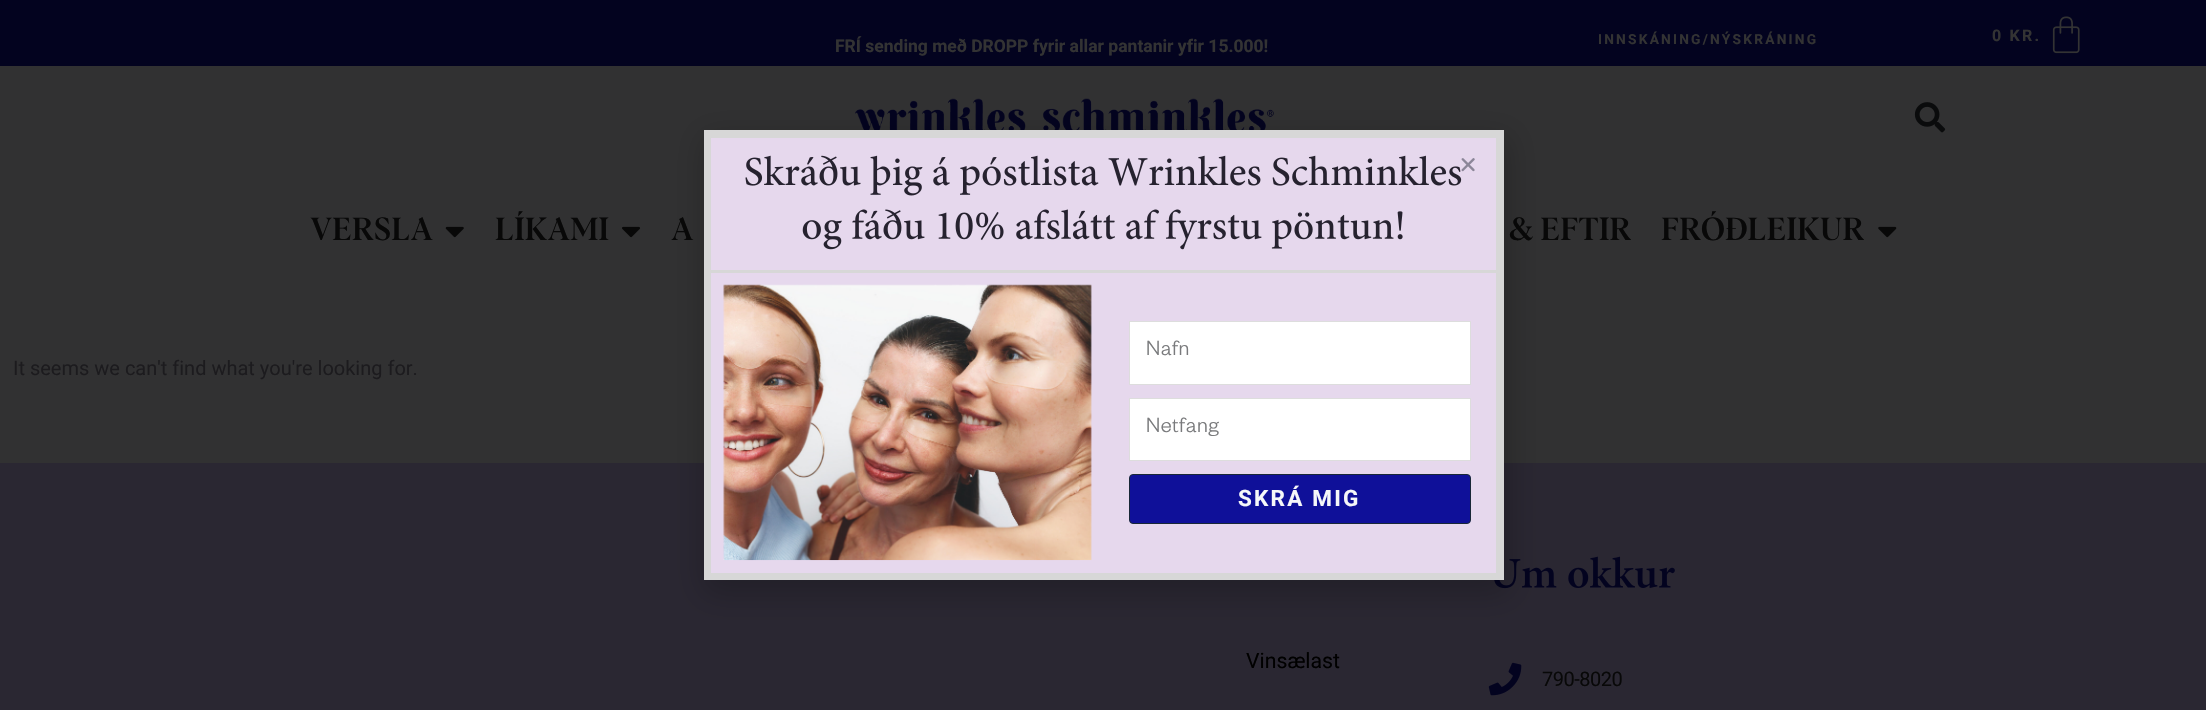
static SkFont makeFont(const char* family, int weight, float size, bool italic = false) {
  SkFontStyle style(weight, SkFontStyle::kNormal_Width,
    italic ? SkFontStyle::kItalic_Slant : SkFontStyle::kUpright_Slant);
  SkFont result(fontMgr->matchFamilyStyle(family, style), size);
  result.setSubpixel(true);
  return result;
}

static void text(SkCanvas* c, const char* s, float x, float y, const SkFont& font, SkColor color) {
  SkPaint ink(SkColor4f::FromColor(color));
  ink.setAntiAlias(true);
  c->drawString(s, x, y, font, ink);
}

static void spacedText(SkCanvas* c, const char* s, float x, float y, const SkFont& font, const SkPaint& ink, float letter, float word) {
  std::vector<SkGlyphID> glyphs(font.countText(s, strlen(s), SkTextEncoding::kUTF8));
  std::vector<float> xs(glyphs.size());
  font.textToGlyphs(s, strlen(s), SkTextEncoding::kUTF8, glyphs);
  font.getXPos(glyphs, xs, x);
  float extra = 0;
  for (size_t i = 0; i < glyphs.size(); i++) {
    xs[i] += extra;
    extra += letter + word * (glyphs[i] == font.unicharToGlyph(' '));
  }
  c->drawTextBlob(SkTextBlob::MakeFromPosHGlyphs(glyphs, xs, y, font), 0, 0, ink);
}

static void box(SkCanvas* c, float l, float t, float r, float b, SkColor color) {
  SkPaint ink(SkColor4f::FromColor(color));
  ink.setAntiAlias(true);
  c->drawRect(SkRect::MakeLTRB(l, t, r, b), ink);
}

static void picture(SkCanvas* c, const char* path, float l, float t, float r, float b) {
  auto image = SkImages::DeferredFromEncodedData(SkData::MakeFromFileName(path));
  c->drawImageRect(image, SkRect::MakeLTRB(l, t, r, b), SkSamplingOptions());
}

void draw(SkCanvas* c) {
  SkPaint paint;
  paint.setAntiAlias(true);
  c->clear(0xff313132);
  box(c, 0, 0, 2206, 66, 0xff03031f);
  SkFont face1 = makeFont("Roboto", 700, 17.5f);
  text(c, "FRÍ sending með DROPP fyrir allar pantanir yfir 15.000!", 835, 52, face1, 0xff333333);
  SkFont face2 = makeFont("Roboto", 700, 13.75f);
  paint.setColor(0xff333333);
  spacedText(c, "INNSKÁNING/NÝSKRÁNING", 1598, 44, face2, paint, 2.2f, 0);
  SkFont face3 = makeFont("Roboto", 700, 16);
  spacedText(c, "0 KR.", 1992, 41, face3, paint, 2.2f, 0);
  picture(c, "img_01.png", 2052, 16, 2080, 54);
  picture(c, "img_02.png", 855, 98, 1274, 130);
  picture(c, "img_03.png", 1914, 102, 1946, 133);
  SkFont face4 = makeFont("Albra", 500, 31.25f);
  text(c, "VERSLA", 310, 240, face4, 0xff080808);
  picture(c, "img_04.png", 445, 226, 464, 238);
  text(c, "LÍKAMI", 495, 240, face4, 0xff080808);
  picture(c, "img_05.png", 622, 226, 641, 238);
  text(c, "A", 671, 240, face4, 0xff080808);
  text(c, "& EFTIR", 1509, 240, face4, 0xff080808);
  text(c, "FRÓÐLEIKUR", 1661, 240, face4, 0xff080808);
  picture(c, "img_06.png", 1878, 226, 1897, 238);
  SkFont face5 = makeFont("Roboto", 400, 20);
  text(c, "It seems we can't find what you're looking for.", 13, 375, face5, 0xff1c1b1e);
  box(c, 0, 463, 2206, 710, 0xff2a2732);
  SkFont face6 = makeFont("Roboto", 400, 21.25f);
  text(c, "Vinsælast", 1246, 668, face6, 0xff000000);
  picture(c, "img_07.png", 1494, 556, 1675, 589);
  picture(c, "img_08.png", 1488, 662, 1522, 696);
  paint.setColor(0xff080808);
  spacedText(c, "790-8020", 1542, 686, face5, paint, -0.5f, 0);
  paint.setColor(0x33000000);
  paint.setMaskFilter(SkMaskFilter::MakeBlur(kNormal_SkBlurStyle, 14.5f));
  c->drawRect(SkRect::MakeLTRB(703, 136, 1510, 594), paint);
  paint.setMaskFilter(nullptr);
  box(c, 711, 138, 1496, 270, 0xffe6d8ed);
  picture(c, "img_10.png", 745, 155, 1462, 196);
  picture(c, "img_09.png", 1461, 158, 1475, 172);
  box(c, 704, 130, 1504, 138, 0xffd7d7d7);
  box(c, 1496, 130, 1504, 580, 0xffd7d7d7);
  box(c, 704, 130, 711, 273, 0xffd7d7d7);
  box(c, 711, 270, 1496, 273, 0xffd7d7d7);
  picture(c, "img_11.png", 802, 209, 1403, 250);
  box(c, 704, 573, 1504, 580, 0xffd7d7d7);
  box(c, 704, 273, 711, 580, 0xffd7d7d7);
  box(c, 711, 273, 1496, 573, 0xffe6d8ed);
  picture(c, "img_12.png", 723, 284, 1092, 561);
  paint.setColor(0xffffffff);
  c->drawRect(SkRect::MakeLTRB(1129.5f, 321.5f, 1470.5f, 384.5f), paint);
  paint.setStyle(SkPaint::kStroke_Style);
  paint.setStrokeWidth(1);
  paint.setColor(0xffdddddd);
  c->drawRect(SkRect::MakeLTRB(1129.5f, 321.5f, 1470.5f, 384.5f), paint);
  SkFont face7 = makeFont("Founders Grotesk", 300, 22.5f);
  paint.setStyle(SkPaint::kFill_Style);
  paint.setColor(0xff797a7c);
  spacedText(c, "Nafn", 1146, 355, face7, paint, 0.5f, 0);
  paint.setColor(0xffffffff);
  c->drawRect(SkRect::MakeLTRB(1129.5f, 398.5f, 1470.5f, 460.5f), paint);
  paint.setStyle(SkPaint::kStroke_Style);
  paint.setColor(0xffdddddd);
  c->drawRect(SkRect::MakeLTRB(1129.5f, 398.5f, 1470.5f, 460.5f), paint);
  paint.setStyle(SkPaint::kFill_Style);
  paint.setColor(0xff797a7c);
  spacedText(c, "Netfang", 1146, 432, face7, paint, 0.5f, 0);
  paint.setColor(0xff0f1099);
  c->drawRoundRect(SkRect::MakeLTRB(1129.5f, 474.5f, 1470.5f, 523.5f), 3.5f, 3.5f, paint);
  paint.setStyle(SkPaint::kStroke_Style);
  paint.setColor(0xff182837);
  c->drawRoundRect(SkRect::MakeLTRB(1129.5f, 474.5f, 1470.5f, 523.5f), 3.5f, 3.5f, paint);
  SkFont face8 = makeFont("Roboto", 700, 22.5f);
  paint.setStyle(SkPaint::kFill_Style);
  paint.setColor(0xfff5f7f9);
  spacedText(c, "SKRÁ MIG", 1238, 506, face8, paint, 2.2f, 0);
}
